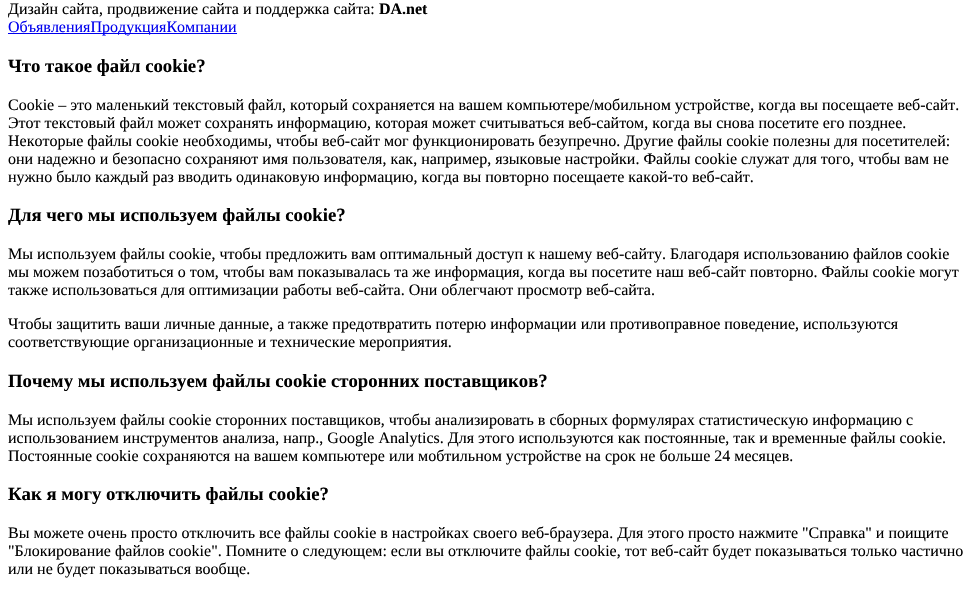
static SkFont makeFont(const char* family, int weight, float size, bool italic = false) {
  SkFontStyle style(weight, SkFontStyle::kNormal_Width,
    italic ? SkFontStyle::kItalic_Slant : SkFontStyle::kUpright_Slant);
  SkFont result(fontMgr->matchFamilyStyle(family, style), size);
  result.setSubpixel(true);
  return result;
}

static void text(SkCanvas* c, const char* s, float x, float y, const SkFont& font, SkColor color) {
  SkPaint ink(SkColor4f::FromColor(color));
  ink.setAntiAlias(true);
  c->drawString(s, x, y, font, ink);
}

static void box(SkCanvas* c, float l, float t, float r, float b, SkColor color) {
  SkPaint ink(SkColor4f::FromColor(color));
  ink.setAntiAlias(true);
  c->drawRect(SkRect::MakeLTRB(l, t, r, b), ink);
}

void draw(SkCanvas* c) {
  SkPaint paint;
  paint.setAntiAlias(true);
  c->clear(0xffffffff);
  SkFont face1 = makeFont("Liberation Serif", 400, 16);
  text(c, "Дизайн сайта, продвижение сайта и поддержка сайта:", 8, 14, face1, 0xff000000);
  SkFont face2 = makeFont("Liberation Serif", 700, 16);
  text(c, "DA.net", 379, 14, face2, 0xff000000);
  box(c, 8, 33, 166, 34, 0xff0000ee);
  text(c, "ОбъявленияПродукцияКомпании", 8, 32, face1, 0xff0000ee);
  box(c, 166, 33, 237, 34, 0xff0000ee);
  SkFont face3 = makeFont("Liberation Serif", 700, 18.75f);
  text(c, "Что такое файл cookie?", 8, 72, face3, 0xff000000);
  text(c, "Cookie – это маленький текстовый файл, который сохраняется на вашем компьютере/мобильном устройстве, когда вы посещаете веб-сайт.", 8, 110, face1, 0xff000000);
  text(c, "Этот текстовый файл может сохранять информацию, которая может считываться веб-сайтом, когда вы снова посетите его позднее.", 8, 128, face1, 0xff000000);
  text(c, "Некоторые файлы cookie необходимы, чтобы веб-сайт мог функционировать безупречно. Другие файлы cookie полезны для посетителей:", 8, 146, face1, 0xff000000);
  text(c, "они надежно и безопасно сохраняют имя пользователя, как, например, языковые настройки. Файлы cookie служат для того, чтобы вам не", 8, 164, face1, 0xff000000);
  text(c, "нужно было каждый раз вводить одинаковую информацию, когда вы повторно посещаете какой-то веб-сайт.", 8, 182, face1, 0xff000000);
  text(c, "Для чего мы используем файлы cookie?", 8, 221, face3, 0xff000000);
  text(c, "Мы используем файлы cookie, чтобы предложить вам оптимальный доступ к нашему веб-сайту. Благодаря использованию файлов cookie", 8, 259, face1, 0xff000000);
  text(c, "мы можем позаботиться о том, чтобы вам показывалась та же информация, когда вы посетите наш веб-сайт повторно. Файлы cookie могут", 8, 277, face1, 0xff000000);
  text(c, "также использоваться для оптимизации работы веб-сайта. Они облегчают просмотр веб-сайта.", 8, 295, face1, 0xff000000);
  text(c, "Чтобы защитить ваши личные данные, а также предотвратить потерю информации или противоправное поведение, используются", 8, 329, face1, 0xff000000);
  text(c, "соответствующие организационные и технические мероприятия.", 8, 347, face1, 0xff000000);
  text(c, "Почему мы используем файлы cookie сторонних поставщиков?", 8, 387, face3, 0xff000000);
  text(c, "Мы используем файлы cookie сторонних поставщиков, чтобы анализировать в сборных формулярах статистическую информацию с", 8, 425, face1, 0xff000000);
  text(c, "использованием инструментов анализа, напр., Google Analytics. Для этого используются как постоянные, так и временные файлы cookie.", 8, 443, face1, 0xff000000);
  text(c, "Постоянные cookie сохраняются на вашем компьютере или мобтильном устройстве на срок не больше 24 месяцев.", 8, 461, face1, 0xff000000);
  text(c, "Как я могу отключить файлы cookie?", 8, 500, face3, 0xff000000);
  text(c, "Вы можете очень просто отключить все файлы cookie в настройках своего веб-браузера. Для этого просто нажмите \"Справка\" и поищите", 8, 538, face1, 0xff000000);
  text(c, "\"Блокирование файлов cookie\". Помните о следующем: если вы отключите файлы cookie, тот веб-сайт будет показываться только частично", 8, 556, face1, 0xff000000);
  text(c, "или не будет показываться вообще.", 8, 574, face1, 0xff000000);
}
